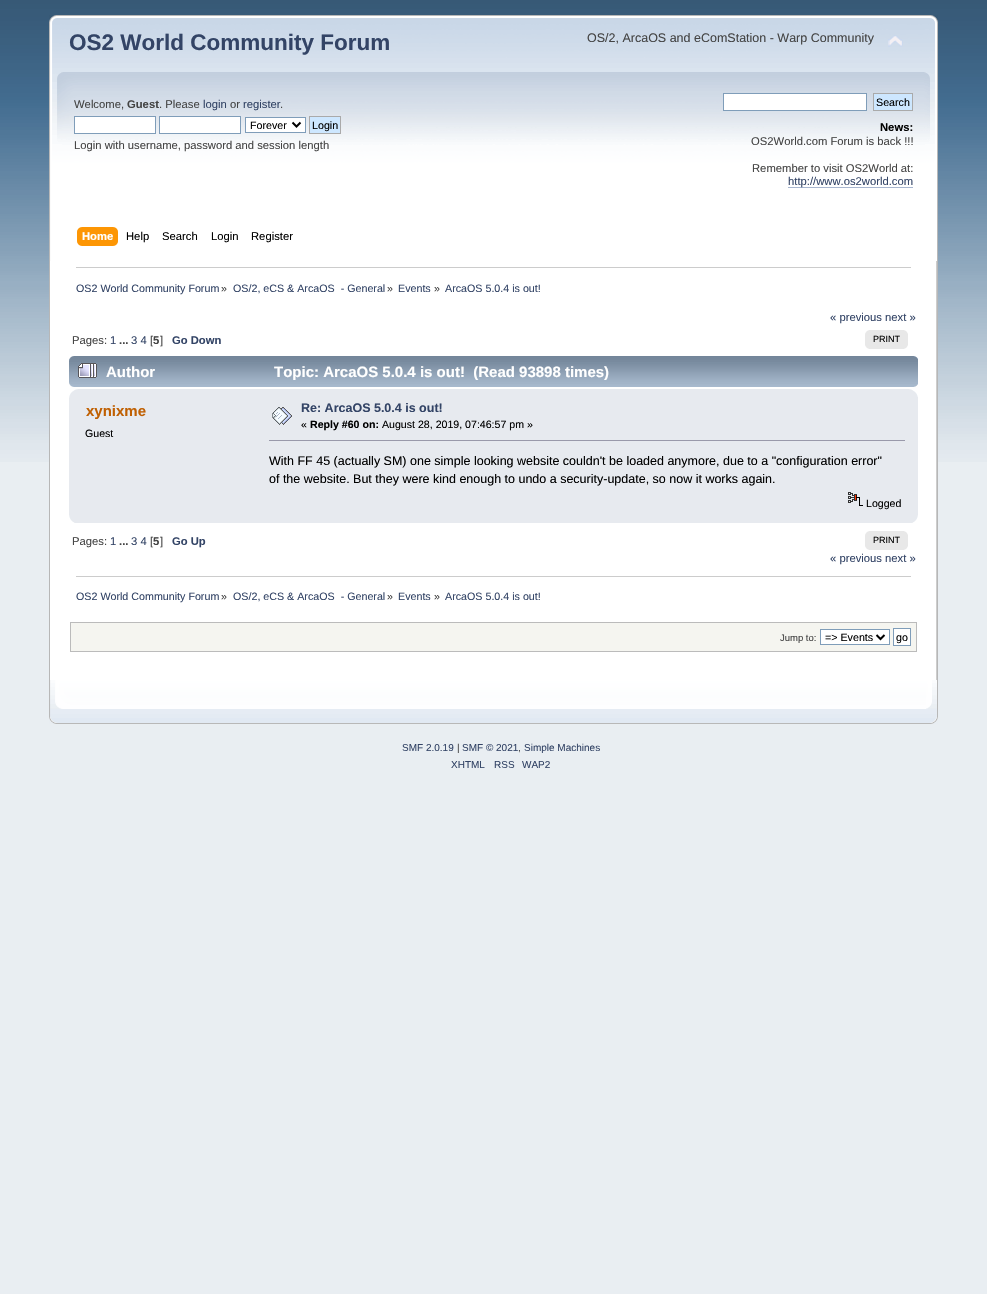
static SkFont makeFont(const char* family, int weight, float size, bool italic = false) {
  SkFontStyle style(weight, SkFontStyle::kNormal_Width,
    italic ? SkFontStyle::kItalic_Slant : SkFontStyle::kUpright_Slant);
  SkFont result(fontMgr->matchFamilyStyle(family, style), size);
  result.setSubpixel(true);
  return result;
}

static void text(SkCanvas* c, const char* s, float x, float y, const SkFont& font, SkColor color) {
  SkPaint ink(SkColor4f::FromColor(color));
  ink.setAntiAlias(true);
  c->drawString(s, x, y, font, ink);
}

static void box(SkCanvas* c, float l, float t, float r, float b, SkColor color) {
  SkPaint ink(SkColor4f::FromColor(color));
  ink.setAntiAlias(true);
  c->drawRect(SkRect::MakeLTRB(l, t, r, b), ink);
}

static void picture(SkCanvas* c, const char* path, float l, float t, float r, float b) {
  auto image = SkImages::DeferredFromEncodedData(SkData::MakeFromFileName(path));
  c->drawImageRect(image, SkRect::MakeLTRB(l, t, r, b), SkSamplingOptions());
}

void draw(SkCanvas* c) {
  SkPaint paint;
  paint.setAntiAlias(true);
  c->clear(0xffe9eef2);
  picture(c, "img_01.png", 0, 0, 987, 462);
  picture(c, "img_02.png", 49, 15, 924, 261);
  picture(c, "img_03.png", 924, 15, 938, 261);
  SkFont face1 = makeFont("Liberation Sans", 700, 22.5f);
  text(c, "OS2 World Community Forum", 69, 50, face1, 0xff334466);
  SkFont face2 = makeFont("Liberation Sans", 400, 12.5f);
  text(c, "OS/2, ArcaOS and eComStation - Warp Community", 587, 42, face2, 0xff444444);
  picture(c, "img_04.png", 888, 35, 903, 47);
  SkFont face3 = makeFont("Liberation Sans", 400, 11.25f);
  text(c, "Welcome,", 74, 108, face3, 0xff444444);
  SkFont face4 = makeFont("Liberation Sans", 700, 11.25f);
  text(c, "Guest", 127, 108, face4, 0xff444444);
  text(c, ". Please", 159, 108, face3, 0xff444444);
  text(c, "login", 203, 108, face3, 0xff334466);
  text(c, "or", 230, 108, face3, 0xff444444);
  text(c, "register", 243, 108, face3, 0xff334466);
  text(c, ".", 280, 108, face3, 0xff444444);
  paint.setColor(0xffffffff);
  c->drawRect(SkRect::MakeLTRB(74.5f, 116.5f, 155.5f, 133.5f), paint);
  paint.setStyle(SkPaint::kStroke_Style);
  paint.setStrokeWidth(1);
  paint.setColor(0xff7f9db9);
  c->drawRect(SkRect::MakeLTRB(74.5f, 116.5f, 155.5f, 133.5f), paint);
  paint.setStyle(SkPaint::kFill_Style);
  paint.setColor(0xffffffff);
  c->drawRect(SkRect::MakeLTRB(159.5f, 116.5f, 240.5f, 133.5f), paint);
  paint.setStyle(SkPaint::kStroke_Style);
  paint.setColor(0xff7f9db9);
  c->drawRect(SkRect::MakeLTRB(159.5f, 116.5f, 240.5f, 133.5f), paint);
  paint.setStyle(SkPaint::kFill_Style);
  paint.setColor(0xffffffff);
  c->drawRect(SkRect::MakeLTRB(245.5f, 117.5f, 305.5f, 132.5f), paint);
  paint.setStyle(SkPaint::kStroke_Style);
  paint.setColor(0xff7f9db9);
  c->drawRect(SkRect::MakeLTRB(245.5f, 117.5f, 305.5f, 132.5f), paint);
  paint.setStrokeWidth(2);
  paint.setColor(0xff000000);
  c->drawPath(SkPathBuilder().moveTo(292.5f, 122.5f).lineTo(296.5f, 126.5f).lineTo(300.5f, 122.5f).detach(), paint);
  SkFont face5 = makeFont("Liberation Sans", 400, 10.7f);
  text(c, "Forever", 250, 129, face5, 0xff000000);
  paint.setStyle(SkPaint::kFill_Style);
  paint.setColor(0xffcde7ff);
  c->drawRect(SkRect::MakeLTRB(309.5f, 116.5f, 340.5f, 133.5f), paint);
  paint.setStyle(SkPaint::kStroke_Style);
  paint.setStrokeWidth(1);
  paint.setColor(0xffaaaaaa);
  c->drawRect(SkRect::MakeLTRB(309.5f, 116.5f, 340.5f, 133.5f), paint);
  text(c, "Login", 312, 129, face5, 0xff000000);
  text(c, "Login with username, password and session length", 74, 149, face3, 0xff444444);
  paint.setStyle(SkPaint::kFill_Style);
  paint.setColor(0xffffffff);
  c->drawRect(SkRect::MakeLTRB(723.5f, 93.5f, 866.5f, 110.5f), paint);
  paint.setStyle(SkPaint::kStroke_Style);
  paint.setColor(0xff7f9db9);
  c->drawRect(SkRect::MakeLTRB(723.5f, 93.5f, 866.5f, 110.5f), paint);
  paint.setStyle(SkPaint::kFill_Style);
  paint.setColor(0xffcde7ff);
  c->drawRect(SkRect::MakeLTRB(873.5f, 93.5f, 912.5f, 110.5f), paint);
  paint.setStyle(SkPaint::kStroke_Style);
  paint.setColor(0xffaaaaaa);
  c->drawRect(SkRect::MakeLTRB(873.5f, 93.5f, 912.5f, 110.5f), paint);
  text(c, "Search", 876, 106, face5, 0xff000000);
  text(c, "News:", 880, 131, face4, 0xff000000);
  text(c, "OS2World.com Forum is back !!!", 751, 145, face3, 0xff444444);
  text(c, "Remember to visit OS2World at:", 752, 172, face3, 0xff444444);
  box(c, 788, 187, 913, 188, 0xffa8b6cf);
  text(c, "http://www.os2world.com", 788, 185, face3, 0xff334466);
  picture(c, "img_05.png", 82, 227, 118, 246);
  picture(c, "img_06.png", 77, 227, 82, 246);
  text(c, "Home", 82, 240, face4, 0xffffffff);
  text(c, "Help", 126, 240, face3, 0xff000000);
  text(c, "Search", 162, 240, face3, 0xff000000);
  text(c, "Login", 211, 240, face3, 0xff000000);
  text(c, "Register", 251, 240, face3, 0xff000000);
  box(c, 50, 261, 936, 680, 0xffffffff);
  box(c, 49, 261, 50, 680, 0xffb7b7b7);
  picture(c, "img_07.png", 936, 261, 938, 680);
  box(c, 76, 267, 911, 268, 0xffcccccc);
  text(c, "OS2 World Community Forum", 76, 292, face5, 0xff334466);
  text(c, "»", 221, 292, face5, 0xff444444);
  text(c, "OS/2, eCS & ArcaOS  - General", 233, 292, face5, 0xff334466);
  text(c, "»", 387, 292, face5, 0xff444444);
  text(c, "Events", 398, 292, face5, 0xff334466);
  text(c, "»", 434, 292, face5, 0xff444444);
  text(c, "ArcaOS 5.0.4 is out!", 445, 292, face5, 0xff334466);
  text(c, "« previous next »", 830, 321, face3, 0xff334466);
  text(c, "Pages:", 72, 344, face3, 0xff444444);
  text(c, "1", 110, 344, face3, 0xff334466);
  text(c, "...", 119, 344, face4, 0xff444444);
  text(c, "3 4", 131, 344, face3, 0xff334466);
  text(c, "[", 150, 344, face3, 0xff444444);
  text(c, "5", 153, 344, face4, 0xff444444);
  text(c, "]", 160, 344, face3, 0xff444444);
  text(c, "Go Down", 172, 344, face4, 0xff334466);
  box(c, 869, 330, 904, 349, 0xffe8e8e8);
  picture(c, "img_08.png", 865, 330, 869, 349);
  picture(c, "img_09.png", 904, 330, 908, 349);
  SkFont face6 = makeFont("Liberation Sans", 400, 9);
  text(c, "PRINT", 873, 342, face6, 0xff000000);
  picture(c, "img_10.png", 69, 356, 913, 387);
  picture(c, "img_11.png", 913, 356, 918, 387);
  picture(c, "img_12.png", 78, 363, 97, 378);
  SkFont face7 = makeFont("Liberation Sans", 700, 15);
  text(c, "Author", 106, 377, face7, 0xffffffff);
  text(c, "Topic: ArcaOS 5.0.4 is out!  (Read 93898 times)", 274, 377, face7, 0xffffffff);
  box(c, 69, 389, 918, 523, 0xffe7eaef);
  picture(c, "img_13.png", 69, 389, 78, 398);
  picture(c, "img_14.png", 909, 389, 918, 397);
  text(c, "xynixme", 86, 416, face7, 0xffc06002);
  SkFont face8 = makeFont("Liberation Sans", 400, 10.6f);
  text(c, "Guest", 85, 437, face8, 0xff000000);
  picture(c, "img_15.png", 272, 407, 292, 425);
  SkFont face9 = makeFont("Liberation Sans", 700, 12.5f);
  text(c, "Re: ArcaOS 5.0.4 is out!", 301, 412, face9, 0xff334466);
  text(c, "«", 301, 428, face8, 0xff000000);
  SkFont face10 = makeFont("Liberation Sans", 700, 10.6f);
  text(c, "Reply #60 on:", 310, 428, face10, 0xff000000);
  text(c, "August 28, 2019, 07:46:57 pm »", 382, 428, face8, 0xff000000);
  box(c, 269, 440, 905, 441, 0xff9999aa);
  text(c, "With FF 45 (actually SM) one simple looking website couldn't be loaded anymore, due to a \"configuration error\"", 269, 465, face2, 0xff000000);
  text(c, "of the website. But they were kind enough to undo a security-update, so now it works again.", 269, 483, face2, 0xff000000);
  picture(c, "img_16.png", 848, 492, 863, 506);
  text(c, "Logged", 866, 507, face8, 0xff000000);
  picture(c, "img_17.png", 69, 515, 75, 523);
  picture(c, "img_18.png", 912, 515, 918, 523);
  text(c, "Pages:", 72, 545, face3, 0xff444444);
  text(c, "1", 110, 545, face3, 0xff334466);
  text(c, "...", 119, 545, face4, 0xff444444);
  text(c, "3 4", 131, 545, face3, 0xff334466);
  text(c, "[", 150, 545, face3, 0xff444444);
  text(c, "5", 153, 545, face4, 0xff444444);
  text(c, "]", 160, 545, face3, 0xff444444);
  text(c, "Go Up", 172, 545, face4, 0xff334466);
  box(c, 869, 531, 904, 550, 0xffe8e8e8);
  picture(c, "img_08.png", 865, 531, 869, 550);
  picture(c, "img_09.png", 904, 531, 908, 550);
  text(c, "PRINT", 873, 543, face6, 0xff000000);
  text(c, "« previous next »", 830, 562, face3, 0xff334466);
  box(c, 76, 576, 911, 577, 0xffcccccc);
  text(c, "OS2 World Community Forum", 76, 600, face5, 0xff334466);
  text(c, "»", 221, 600, face5, 0xff444444);
  text(c, "OS/2, eCS & ArcaOS  - General", 233, 600, face5, 0xff334466);
  text(c, "»", 387, 600, face5, 0xff444444);
  text(c, "Events", 398, 600, face5, 0xff334466);
  text(c, "»", 434, 600, face5, 0xff444444);
  text(c, "ArcaOS 5.0.4 is out!", 445, 600, face5, 0xff334466);
  paint.setStyle(SkPaint::kFill_Style);
  paint.setColor(0xfff5f5f0);
  c->drawRect(SkRect::MakeLTRB(70.5f, 622.5f, 916.5f, 651.5f), paint);
  paint.setStyle(SkPaint::kStroke_Style);
  paint.setColor(0xffbbbbbb);
  c->drawRect(SkRect::MakeLTRB(70.5f, 622.5f, 916.5f, 651.5f), paint);
  SkFont face11 = makeFont("Liberation Sans", 400, 9.5f);
  text(c, "Jump to:", 780, 641, face11, 0xff444444);
  paint.setStyle(SkPaint::kFill_Style);
  paint.setColor(0xffffffff);
  c->drawRect(SkRect::MakeLTRB(820.5f, 629.5f, 889.5f, 644.5f), paint);
  paint.setStyle(SkPaint::kStroke_Style);
  paint.setColor(0xff7f9db9);
  c->drawRect(SkRect::MakeLTRB(820.5f, 629.5f, 889.5f, 644.5f), paint);
  paint.setStrokeWidth(2);
  paint.setColor(0xff000000);
  c->drawPath(SkPathBuilder().moveTo(876.5f, 635).lineTo(880.5f, 639).lineTo(884.5f, 635).detach(), paint);
  text(c, "=> Events", 825, 641, face5, 0xff000000);
  paint.setStyle(SkPaint::kFill_Style);
  paint.setColor(0xffffffff);
  c->drawRect(SkRect::MakeLTRB(893.5f, 628.5f, 910.5f, 645.5f), paint);
  paint.setStyle(SkPaint::kStroke_Style);
  paint.setStrokeWidth(1);
  paint.setColor(0xff7f9db9);
  c->drawRect(SkRect::MakeLTRB(893.5f, 628.5f, 910.5f, 645.5f), paint);
  text(c, "go", 896, 641, face5, 0xff000000);
  picture(c, "img_19.png", 49, 680, 926, 724);
  picture(c, "img_20.png", 926, 680, 938, 724);
  SkFont face12 = makeFont("Liberation Sans", 400, 10);
  text(c, "SMF 2.0.19", 402, 751, face12, 0xff334466);
  text(c, "|", 457, 751, face12, 0xff444444);
  text(c, "SMF © 2021", 462, 751, face12, 0xff334466);
  text(c, ",", 518, 751, face12, 0xff444444);
  text(c, "Simple Machines", 524, 751, face12, 0xff334466);
  text(c, "XHTML", 451, 768, face12, 0xff334466);
  text(c, "RSS", 494, 768, face12, 0xff334466);
  text(c, "WAP2", 522, 768, face12, 0xff334466);
}
